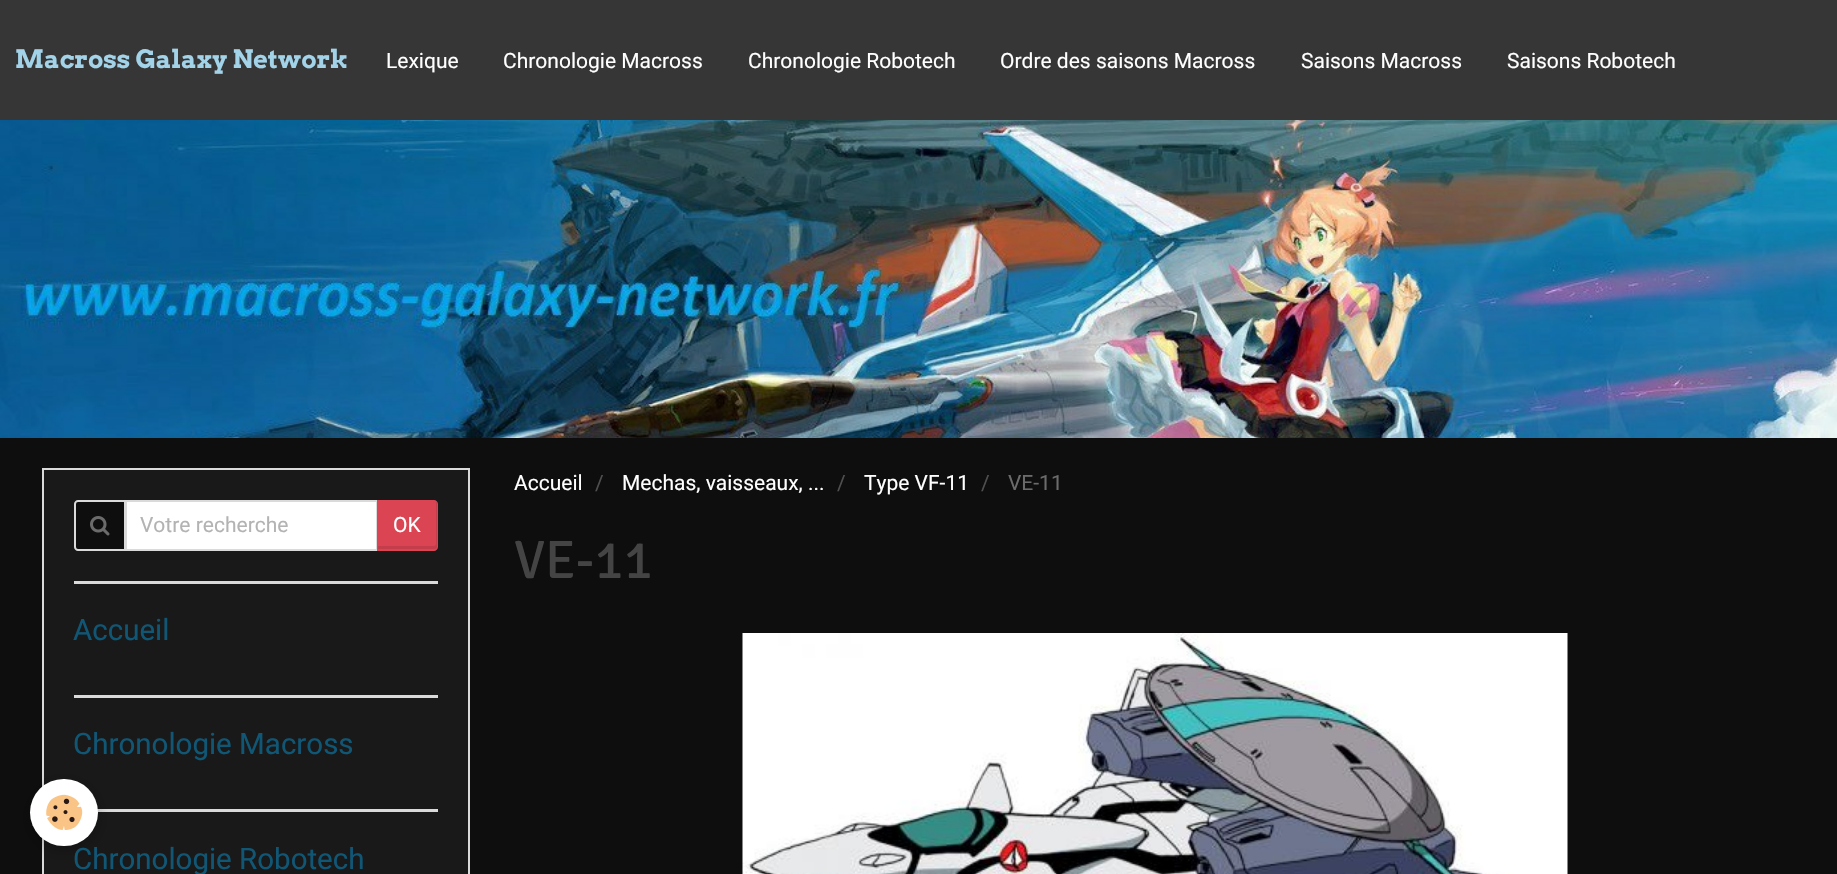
static SkFont makeFont(const char* family, int weight, float size, bool italic = false) {
  SkFontStyle style(weight, SkFontStyle::kNormal_Width,
    italic ? SkFontStyle::kItalic_Slant : SkFontStyle::kUpright_Slant);
  SkFont result(fontMgr->matchFamilyStyle(family, style), size);
  result.setSubpixel(true);
  return result;
}

static void text(SkCanvas* c, const char* s, float x, float y, const SkFont& font, SkColor color) {
  SkPaint ink(SkColor4f::FromColor(color));
  ink.setAntiAlias(true);
  c->drawString(s, x, y, font, ink);
}

static void box(SkCanvas* c, float l, float t, float r, float b, SkColor color) {
  SkPaint ink(SkColor4f::FromColor(color));
  ink.setAntiAlias(true);
  c->drawRect(SkRect::MakeLTRB(l, t, r, b), ink);
}

static void roundBox(SkCanvas* c, float l, float t, float r, float b, float radius, SkColor color) {
  SkPaint ink(SkColor4f::FromColor(color));
  ink.setAntiAlias(true);
  c->drawRoundRect(SkRect::MakeLTRB(l, t, r, b), radius, radius, ink);
}

static void picture(SkCanvas* c, const char* path, float l, float t, float r, float b) {
  auto image = SkImages::DeferredFromEncodedData(SkData::MakeFromFileName(path));
  c->drawImageRect(image, SkRect::MakeLTRB(l, t, r, b), SkSamplingOptions());
}

void draw(SkCanvas* c) {
  SkPaint paint;
  paint.setAntiAlias(true);
  c->clear(0xff0f0e0e);
  box(c, 0, 0, 1837, 120, 0xff363636);
  SkFont face1 = makeFont("Arvo", 700, 25.25f);
  text(c, "Macross Galaxy Network", 15, 68, face1, 0xffa3d3e9);
  SkFont face2 = makeFont("Roboto", 400, 21);
  text(c, "Lexique", 386, 68, face2, 0xffffffff);
  text(c, "Chronologie Macross", 503, 68, face2, 0xffffffff);
  text(c, "Chronologie Robotech", 748, 68, face2, 0xffffffff);
  text(c, "Ordre des saisons Macross", 1000, 68, face2, 0xffffffff);
  text(c, "Saisons Macross", 1301, 68, face2, 0xffffffff);
  text(c, "Saisons Robotech", 1507, 68, face2, 0xffffffff);
  picture(c, "img_01.png", 0, 120, 1837, 438);
  paint.setColor(0xff191919);
  c->drawRect(SkRect::MakeLTRB(43, 469, 469, 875), paint);
  paint.setStyle(SkPaint::kStroke_Style);
  paint.setStrokeWidth(2);
  paint.setColor(0xffdadada);
  c->drawRect(SkRect::MakeLTRB(43, 469, 469, 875), paint);
  box(c, 97, 809, 438, 812, 0xffdadada);
  paint.setStyle(SkPaint::kFill_Style);
  paint.setColor(0x3d000000);
  paint.setMaskFilter(SkMaskFilter::MakeBlur(kNormal_SkBlurStyle, 7.5f));
  c->drawRoundRect(SkRect::MakeLTRB(30, 783, 98, 851), 34, 34, paint);
  paint.setMaskFilter(nullptr);
  roundBox(c, 30, 779, 98, 846, 33.5f, 0xffffffff);
  picture(c, "img_02.png", 46, 794, 83, 830);
  box(c, 74, 581, 438, 584, 0xffdadada);
  paint.setColor(0xff0f0e0e);
  c->drawPath(SkPathBuilder().moveTo(78, 501).lineTo(125, 501).lineTo(125, 550).lineTo(78, 550).cubicTo(76.5f, 550, 75, 548.5f, 75, 547).lineTo(75, 504).cubicTo(75, 502.5f, 76.5f, 501, 78, 501).close().detach(), paint);
  paint.setStyle(SkPaint::kStroke_Style);
  paint.setColor(0xffdadada);
  c->drawPath(SkPathBuilder().moveTo(78, 501).lineTo(125, 501).lineTo(125, 550).lineTo(78, 550).cubicTo(76.5f, 550, 75, 548.5f, 75, 547).lineTo(75, 504).cubicTo(75, 502.5f, 76.5f, 501, 78, 501).close().detach(), paint);
  picture(c, "img_03.png", 90, 516, 110, 536);
  paint.setStyle(SkPaint::kFill_Style);
  paint.setColor(0xffffffff);
  c->drawRect(SkRect::MakeLTRB(126, 501, 377, 550), paint);
  paint.setStyle(SkPaint::kStroke_Style);
  paint.setColor(0xffdadada);
  c->drawRect(SkRect::MakeLTRB(126, 501, 377, 550), paint);
  text(c, "Votre recherche", 140, 532, face2, 0xffb3b3b3);
  paint.setStyle(SkPaint::kFill_Style);
  paint.setColor(0xffda4453);
  c->drawPath(SkPathBuilder().moveTo(377, 500).lineTo(434, 500).cubicTo(436, 500, 438, 502, 438, 504).lineTo(438, 547).cubicTo(438, 549, 436, 551, 434, 551).lineTo(377, 551).close().detach(), paint);
  paint.setColor(0xffc43d4b);
  c->drawPath(SkPathBuilder().moveTo(378, 546).lineTo(378, 549).lineTo(435, 549).cubicTo(436, 549, 437, 548, 437, 547).lineTo(437, 503).cubicTo(437, 502, 437, 502, 436, 501).lineTo(436, 544).cubicTo(436, 545, 435, 546, 434, 546).close().detach(), paint);
  text(c, "OK", 393, 532, face2, 0xffffffff);
  box(c, 74, 695, 438, 698, 0xffdadada);
  SkFont face3 = makeFont("Roboto", 400, 29.5f);
  text(c, "Accueil", 73, 640, face3, 0xff105675);
  text(c, "Chronologie Macross", 73, 754, face3, 0xff105675);
  text(c, "Chronologie Robotech", 73, 869, face3, 0xff105675);
  text(c, "Accueil", 514, 490, face2, 0xffffffff);
  text(c, "/", 595, 490, face2, 0xff4f4f4f);
  text(c, "Mechas, vaisseaux, ...", 622, 490, face2, 0xffffffff);
  text(c, "/", 837, 490, face2, 0xff4f4f4f);
  text(c, "Type VF-11", 864, 490, face2, 0xffffffff);
  text(c, "/", 981, 490, face2, 0xff4f4f4f);
  text(c, "VE-11", 1008, 490, face2, 0xff6b6b6b);
  SkFont face4 = makeFont("Signika", 400, 54);
  text(c, "VE-11", 514, 578, face4, 0xff444444);
  picture(c, "img_04.png", 742, 633, 1568, 874);
}
